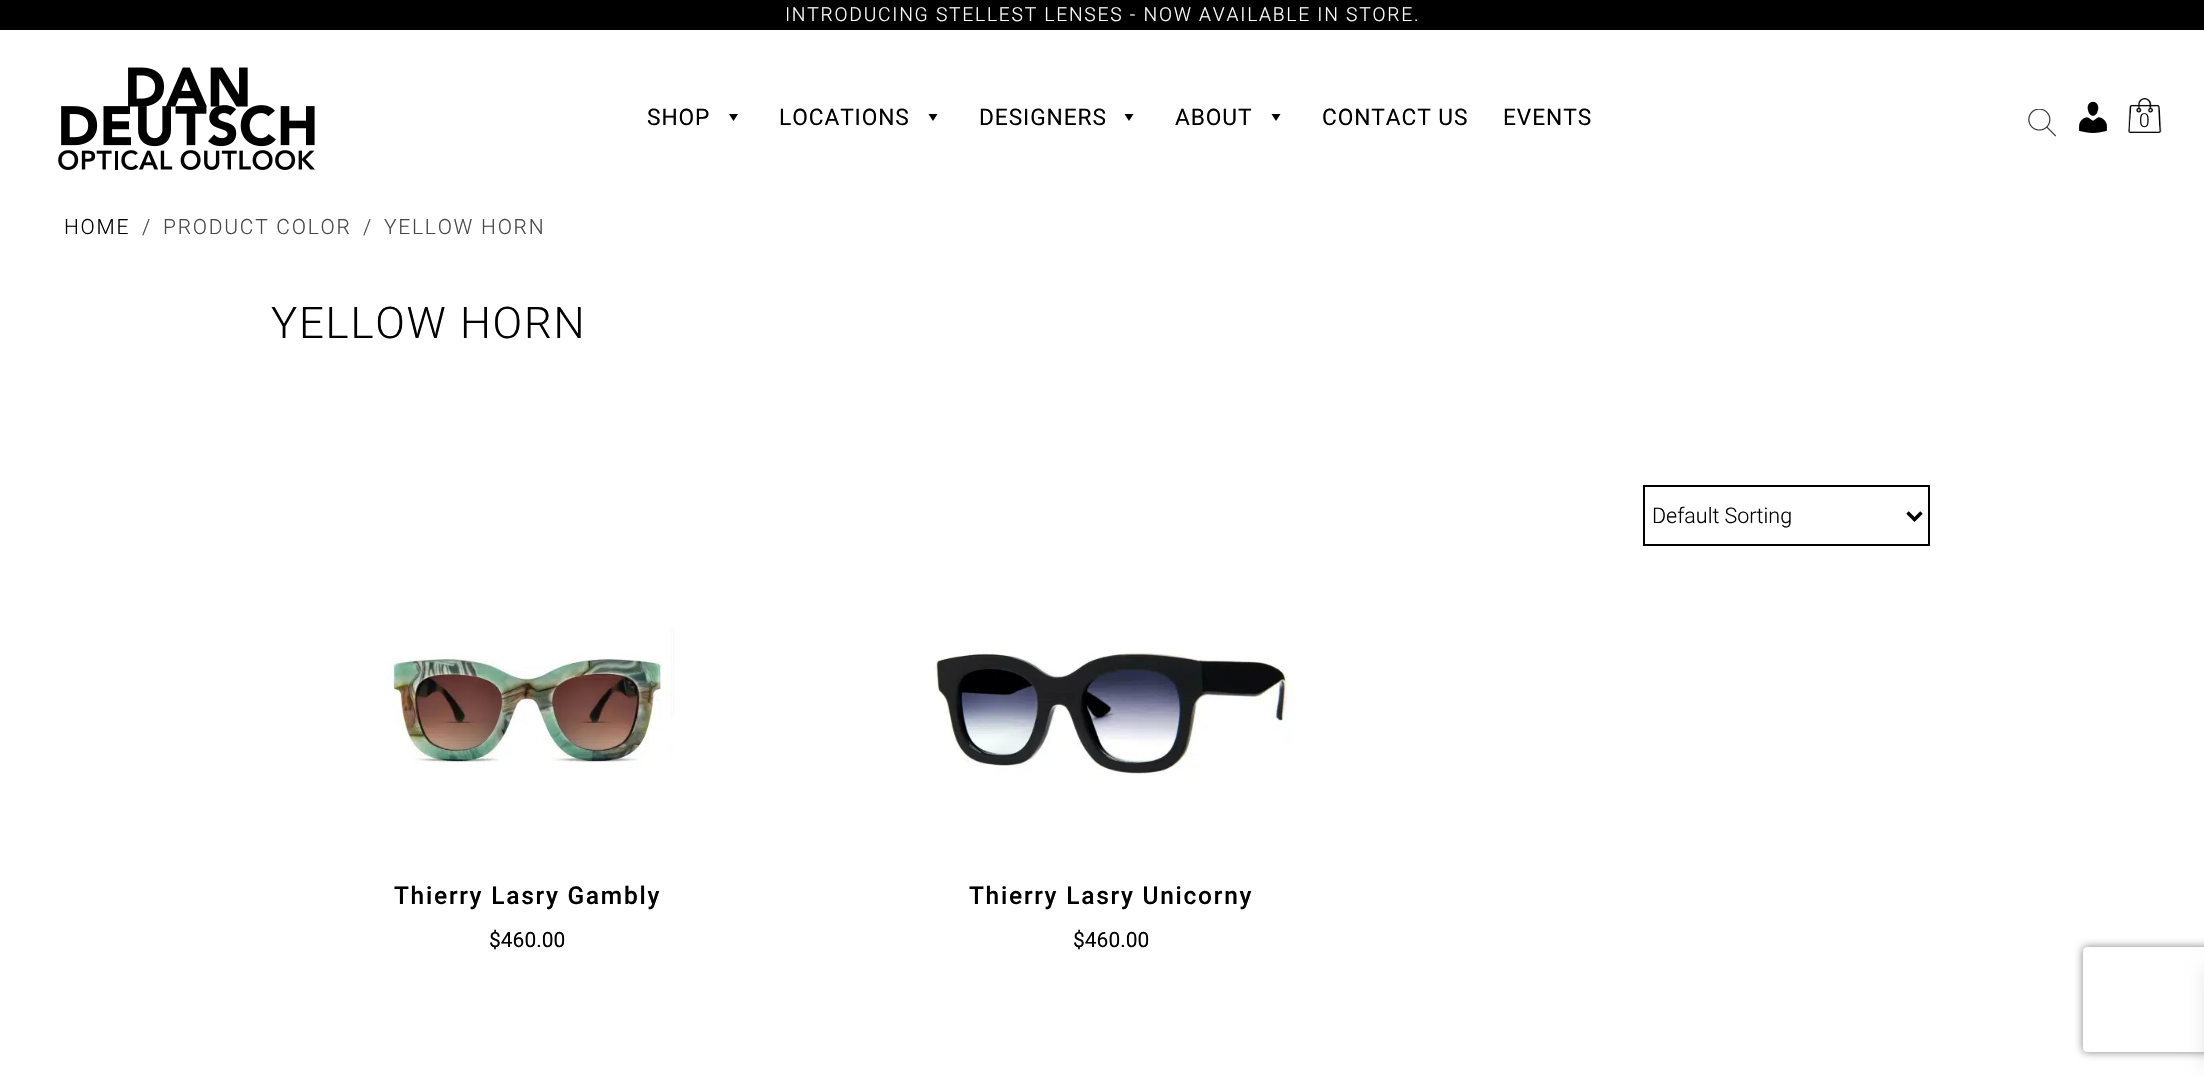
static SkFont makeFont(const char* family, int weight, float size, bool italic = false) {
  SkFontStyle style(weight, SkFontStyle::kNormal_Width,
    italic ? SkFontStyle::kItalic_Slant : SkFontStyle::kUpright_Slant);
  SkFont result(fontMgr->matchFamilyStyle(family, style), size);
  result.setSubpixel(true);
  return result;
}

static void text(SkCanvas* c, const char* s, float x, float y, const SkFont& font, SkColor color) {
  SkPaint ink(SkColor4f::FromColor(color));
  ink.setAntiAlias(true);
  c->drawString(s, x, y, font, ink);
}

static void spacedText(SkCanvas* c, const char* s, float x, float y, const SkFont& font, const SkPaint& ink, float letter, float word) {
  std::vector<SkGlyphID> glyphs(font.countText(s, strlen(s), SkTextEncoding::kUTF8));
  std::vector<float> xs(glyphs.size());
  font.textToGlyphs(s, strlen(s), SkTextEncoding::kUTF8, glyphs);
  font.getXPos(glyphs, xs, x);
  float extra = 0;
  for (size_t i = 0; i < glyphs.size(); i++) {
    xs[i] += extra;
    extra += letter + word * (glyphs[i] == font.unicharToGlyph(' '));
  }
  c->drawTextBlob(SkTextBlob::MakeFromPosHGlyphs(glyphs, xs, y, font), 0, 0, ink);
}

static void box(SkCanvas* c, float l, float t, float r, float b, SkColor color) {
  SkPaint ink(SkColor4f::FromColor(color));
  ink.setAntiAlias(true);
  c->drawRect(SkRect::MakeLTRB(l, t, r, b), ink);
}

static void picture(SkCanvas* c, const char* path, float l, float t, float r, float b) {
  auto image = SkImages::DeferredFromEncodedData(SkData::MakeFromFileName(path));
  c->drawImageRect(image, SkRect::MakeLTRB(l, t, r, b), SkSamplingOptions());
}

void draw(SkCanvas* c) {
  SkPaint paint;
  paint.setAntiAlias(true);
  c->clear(0xffffffff);
  box(c, 0, 0, 2204, 30, 0xff000000);
  SkFont face1 = makeFont("Roboto", 300, 19.25f);
  paint.setColor(0xffffffff);
  spacedText(c, "INTRODUCING STELLEST LENSES - NOW AVAILABLE IN STORE.", 785, 21, face1, paint, 1.75f, 0);
  picture(c, "img_01.png", 58, 67, 315, 170);
  SkFont face2 = makeFont("Roboto", 400, 22.75f);
  paint.setColor(0xff000000);
  spacedText(c, "SHOP", 647, 125, face2, paint, 0.9f, 0);
  c->drawPath(SkPathBuilder().moveTo(738, 114).lineTo(733.5f, 121).lineTo(729, 114).close().detach(), paint);
  spacedText(c, "LOCATIONS", 779, 125, face2, paint, 0.9f, 0);
  c->drawPath(SkPathBuilder().moveTo(937.5f, 114).lineTo(933, 121).lineTo(928.5f, 114).close().detach(), paint);
  spacedText(c, "DESIGNERS", 979, 125, face2, paint, 0.9f, 0);
  c->drawPath(SkPathBuilder().moveTo(1133.5f, 114).lineTo(1129, 121).lineTo(1124.5f, 114).close().detach(), paint);
  spacedText(c, "ABOUT", 1175, 125, face2, paint, 0.9f, 0);
  c->drawPath(SkPathBuilder().moveTo(1280.5f, 114).lineTo(1276, 121).lineTo(1271.5f, 114).close().detach(), paint);
  spacedText(c, "CONTACT US", 1322, 125, face2, paint, 0.9f, 0);
  spacedText(c, "EVENTS", 1503, 125, face2, paint, 0.9f, 0);
  picture(c, "img_02.png", 2028, 109, 2056, 137);
  picture(c, "img_03.png", 2079, 101, 2107, 133);
  text(c, "0", 2139, 127, face1, 0xff000000);
  picture(c, "img_04.png", 2128, 98, 2162, 133);
  SkFont face3 = makeFont("Roboto", 300, 21);
  spacedText(c, "HOME", 64, 234, face3, paint, 1.75f, 0);
  paint.setColor(0xff484848);
  spacedText(c, "/", 142, 234, face3, paint, 1.75f, 0);
  spacedText(c, "PRODUCT COLOR", 163, 234, face3, paint, 1.75f, 0);
  spacedText(c, "/", 363, 234, face3, paint, 1.75f, 0);
  spacedText(c, "YELLOW HORN", 384, 234, face3, paint, 1.75f, 0);
  SkFont face4 = makeFont("Roboto", 300, 43.75f);
  paint.setColor(0xff000000);
  spacedText(c, "YELLOW HORN", 271, 338, face4, paint, 1.75f, 0);
  paint.setStyle(SkPaint::kStroke_Style);
  paint.setStrokeWidth(2);
  c->drawRect(SkRect::MakeLTRB(1644, 486, 1929, 545), paint);
  paint.setStrokeWidth(3.5f);
  c->drawPath(SkPathBuilder().moveTo(1907.5f, 512.5f).lineTo(1914.5f, 519.5f).lineTo(1921.5f, 512.5f).detach(), paint);
  SkFont face5 = makeFont("Roboto", 300, 21.5f);
  text(c, "Default Sorting", 1652, 523, face5, 0xff000000);
  picture(c, "img_05.png", 390, 628, 674, 766);
  SkFont face6 = makeFont("Roboto", 500, 24.5f);
  paint.setStyle(SkPaint::kFill_Style);
  spacedText(c, "Thierry Lasry Gambly", 394, 904, face6, paint, 1.75f, 0);
  SkFont face7 = makeFont("Roboto", 400, 21);
  text(c, "$460.00", 489, 947, face7, 0xff000000);
  picture(c, "img_06.png", 934, 649, 1293, 775);
  spacedText(c, "Thierry Lasry Unicorny", 969, 904, face6, paint, 1.75f, 0);
  text(c, "$460.00", 1073, 947, face7, 0xff000000);
  c->save();
  c->clipPath(SkPathBuilder(SkPathFillType::kEvenOdd).moveTo(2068, 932).lineTo(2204, 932).lineTo(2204, 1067).lineTo(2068, 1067).close().moveTo(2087, 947).lineTo(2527, 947).cubicTo(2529, 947, 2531, 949, 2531, 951).lineTo(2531, 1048).cubicTo(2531, 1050, 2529, 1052, 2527, 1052).lineTo(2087, 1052).cubicTo(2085, 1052, 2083, 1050, 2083, 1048).lineTo(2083, 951).cubicTo(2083, 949, 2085, 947, 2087, 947).close().detach(), true);
  paint.setColor(0xff808080);
  paint.setMaskFilter(SkMaskFilter::MakeBlur(kNormal_SkBlurStyle, 4.5f));
  c->drawRoundRect(SkRect::MakeLTRB(2083, 947, 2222, 1052), 4, 4, paint);
  paint.setMaskFilter(nullptr);
  c->restore();
  paint.setColor(0x1a000000);
  paint.setMaskFilter(SkMaskFilter::MakeBlur(kNormal_SkBlurStyle, 9));
  c->drawRect(SkRect::MakeLTRB(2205, 968, 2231, 1068), paint);
  paint.setMaskFilter(nullptr);
}
